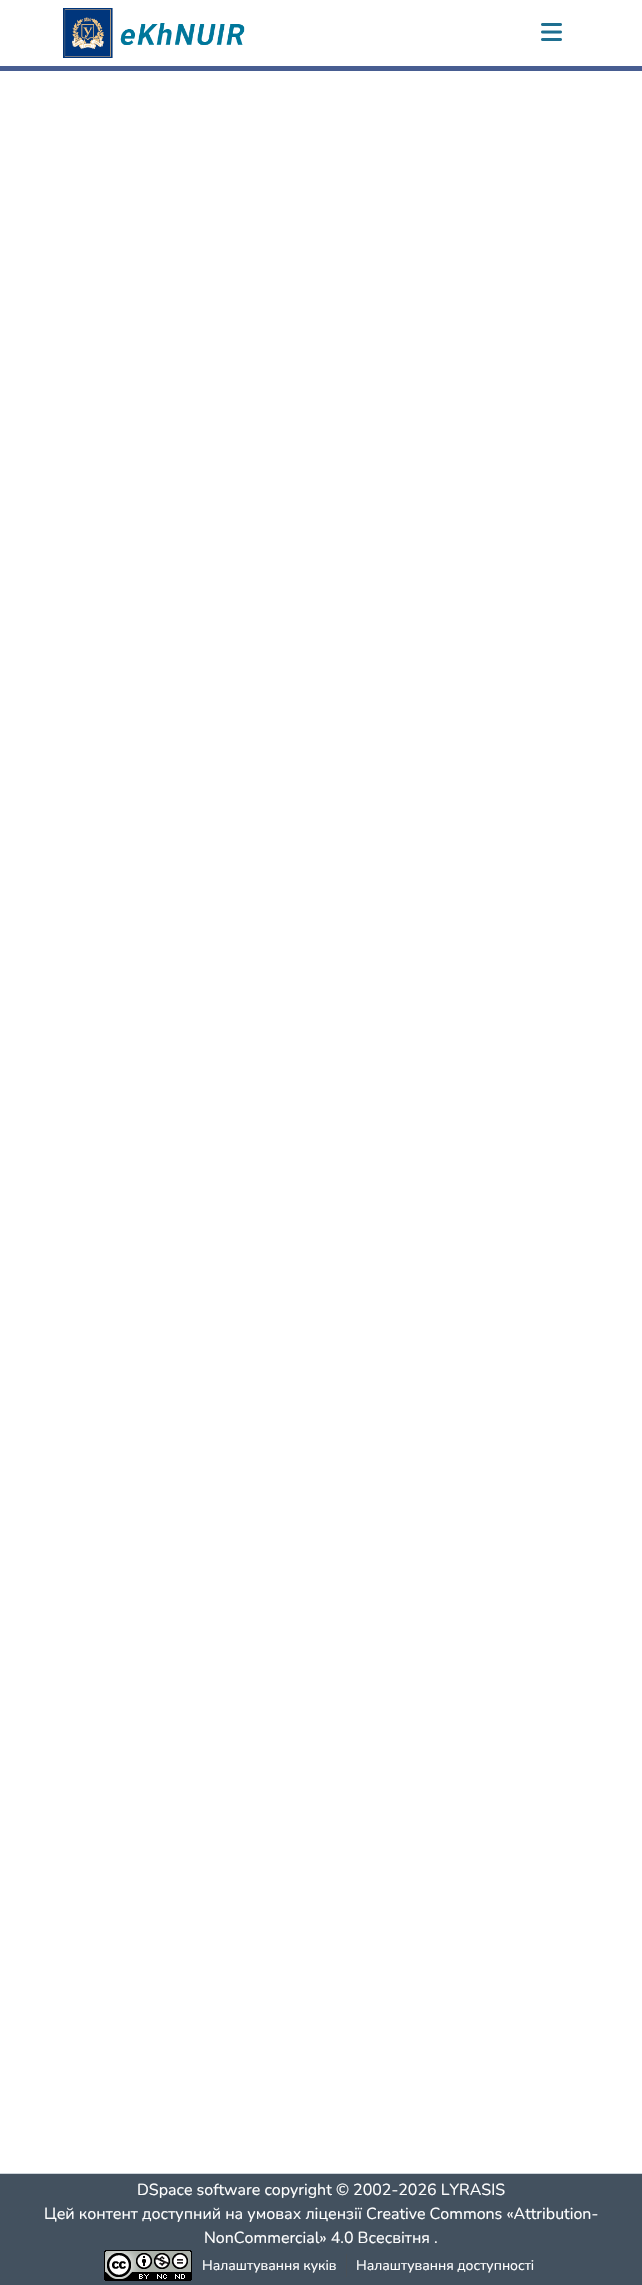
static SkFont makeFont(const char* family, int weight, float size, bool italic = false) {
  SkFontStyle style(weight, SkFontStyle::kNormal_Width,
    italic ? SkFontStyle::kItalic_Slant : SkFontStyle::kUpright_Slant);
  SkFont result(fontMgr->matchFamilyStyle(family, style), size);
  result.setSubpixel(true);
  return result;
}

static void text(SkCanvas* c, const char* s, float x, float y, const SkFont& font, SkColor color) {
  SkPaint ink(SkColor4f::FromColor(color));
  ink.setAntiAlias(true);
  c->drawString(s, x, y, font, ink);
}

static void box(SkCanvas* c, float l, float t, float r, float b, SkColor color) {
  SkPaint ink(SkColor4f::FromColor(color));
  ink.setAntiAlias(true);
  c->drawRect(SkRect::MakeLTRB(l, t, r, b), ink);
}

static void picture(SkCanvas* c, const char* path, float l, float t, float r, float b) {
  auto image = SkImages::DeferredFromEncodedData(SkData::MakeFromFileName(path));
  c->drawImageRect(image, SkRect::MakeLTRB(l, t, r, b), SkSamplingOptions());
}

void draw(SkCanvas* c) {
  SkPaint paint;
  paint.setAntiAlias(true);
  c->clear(0xffffffff);
  box(c, 0, 66, 642, 71, 0xff485d91);
  picture(c, "img_01.png", 63, 8, 245, 58);
  picture(c, "img_02.png", 541, 23, 562, 41);
  box(c, 0, 2174, 642, 2285, 0xff43515f);
  box(c, 0, 2173, 642, 2174, 0xffced4da);
  SkFont face1 = makeFont("Nunito", 400, 16);
  text(c, "DSpace software copyright © 2002-2026 LYRASIS", 137, 2195, face1, 0xffffffff);
  text(c, "Цей контент доступний на умовах ліцензії Creative Commons «Attribution-", 44, 2219, face1, 0xffffffff);
  text(c, "NonCommercial» 4.0 Всесвітня .", 204, 2243, face1, 0xffffffff);
  picture(c, "img_03.png", 104, 2250, 192, 2281);
  SkFont face2 = makeFont("Nunito", 400, 14);
  text(c, "Налаштування куків", 202, 2270, face2, 0xffffffff);
  box(c, 346, 2254, 347, 2277, 0xff495057);
  text(c, "Налаштування доступності", 356, 2270, face2, 0xffffffff);
}
